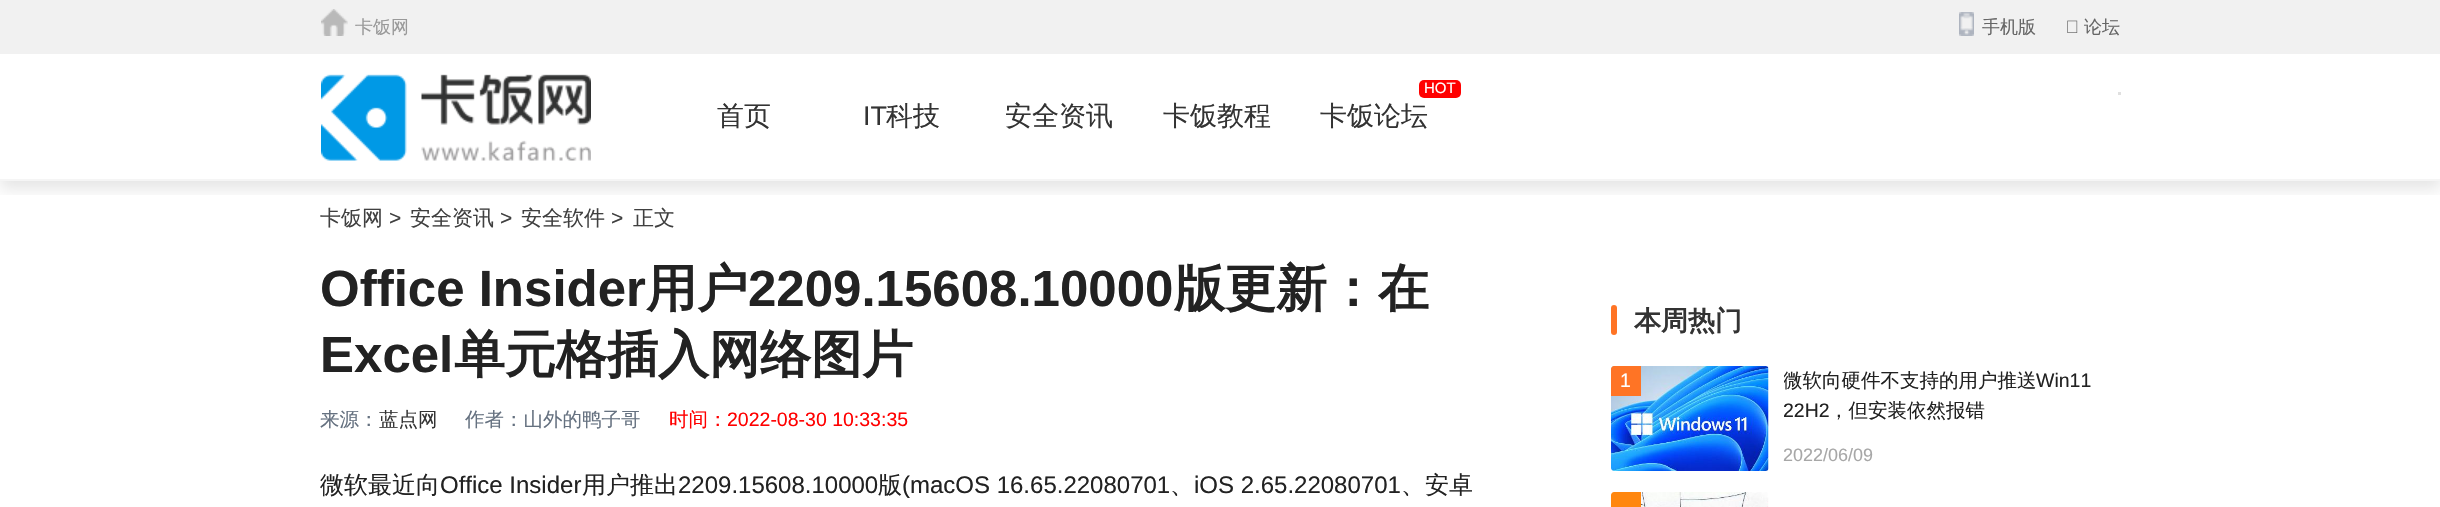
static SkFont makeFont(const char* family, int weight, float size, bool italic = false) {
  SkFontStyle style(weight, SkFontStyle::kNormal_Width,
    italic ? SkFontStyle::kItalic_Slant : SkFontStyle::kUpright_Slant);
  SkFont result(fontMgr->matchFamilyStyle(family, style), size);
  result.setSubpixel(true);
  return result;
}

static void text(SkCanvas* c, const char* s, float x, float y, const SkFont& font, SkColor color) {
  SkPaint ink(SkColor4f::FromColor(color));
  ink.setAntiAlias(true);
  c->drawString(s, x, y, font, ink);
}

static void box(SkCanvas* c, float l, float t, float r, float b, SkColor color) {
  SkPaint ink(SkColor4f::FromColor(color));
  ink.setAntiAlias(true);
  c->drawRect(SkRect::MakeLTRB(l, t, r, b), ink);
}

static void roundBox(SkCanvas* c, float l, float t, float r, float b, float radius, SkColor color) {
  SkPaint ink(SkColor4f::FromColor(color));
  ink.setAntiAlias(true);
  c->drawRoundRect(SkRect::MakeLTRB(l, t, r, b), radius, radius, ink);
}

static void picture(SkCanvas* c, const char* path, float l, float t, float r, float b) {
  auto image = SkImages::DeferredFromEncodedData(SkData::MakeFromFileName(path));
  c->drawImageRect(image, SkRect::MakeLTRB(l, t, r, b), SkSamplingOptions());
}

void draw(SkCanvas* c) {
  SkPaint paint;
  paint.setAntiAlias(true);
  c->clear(0xffffffff);
  box(c, 0, 0, 2440, 54, 0xfff1f1f1);
  picture(c, "img_01.png", 321, 9, 348, 36);
  SkFont face1 = makeFont("WenQuanYi Zen Hei", 500, 18);
  text(c, "卡饭网", 355, 33, face1, 0xff999999);
  picture(c, "img_02.png", 1959, 12, 1974, 36);
  text(c, "手机版", 1982, 33, face1, 0xff666666);
  picture(c, "img_03.png", 2067, 20, 2078, 33);
  text(c, "论坛", 2084, 33, face1, 0xff666666);
  c->save();
  c->clipRect(SkRect::MakeLTRB(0, 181, 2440, 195));
  paint.setColor(0x1a000000);
  paint.setMaskFilter(SkMaskFilter::MakeBlur(kNormal_SkBlurStyle, 7.5f));
  c->drawRect(SkRect::MakeLTRB(0, 63, 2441, 189), paint);
  paint.setMaskFilter(nullptr);
  c->restore();
  box(c, 0, 179, 2440, 181, 0xfff5f5f5);
  picture(c, "img_04.png", 321, 74, 591, 161);
  SkFont face2 = makeFont("WenQuanYi Zen Hei", 500, 27);
  text(c, "首页", 717, 125, face2, 0xff333333);
  SkFont face3 = makeFont("Liberation Sans", 400, 27);
  text(c, "IT", 863, 125, face3, 0xff333333);
  text(c, "科技", 886, 125, face2, 0xff333333);
  text(c, "安全资讯", 1005, 125, face2, 0xff333333);
  text(c, "卡饭教程", 1163, 125, face2, 0xff333333);
  roundBox(c, 1419, 80, 1461, 98, 5, 0xffff0000);
  SkFont face4 = makeFont("Liberation Sans", 400, 15);
  text(c, "HOT", 1424, 93, face4, 0xffffffff);
  text(c, "卡饭论坛", 1320, 125, face2, 0xff333333);
  box(c, 2118, 92, 2121, 95, 0xffe0e0e0);
  SkFont face5 = makeFont("WenQuanYi Zen Hei", 500, 21);
  text(c, "卡饭网", 320, 225, face5, 0xff404040);
  SkFont face6 = makeFont("Liberation Sans", 400, 21);
  text(c, ">", 389, 225, face6, 0xff404040);
  text(c, "安全资讯", 410, 225, face5, 0xff404040);
  text(c, ">", 500, 225, face6, 0xff404040);
  text(c, "安全软件", 521, 225, face5, 0xff404040);
  text(c, ">", 611, 225, face6, 0xff404040);
  text(c, "正文", 633, 225, face5, 0xff404040);
  SkFont face7 = makeFont("Liberation Sans", 700, 51);
  text(c, "Office Insider", 320, 306, face7, 0xff222222);
  SkFont face8 = makeFont("WenQuanYi Zen Hei", 700, 51);
  text(c, "用户", 646, 306, face8, 0xff222222);
  text(c, "2209.15608.10000", 748, 306, face7, 0xff222222);
  text(c, "版更新：在", 1174, 306, face8, 0xff222222);
  text(c, "Excel", 320, 372, face7, 0xff222222);
  text(c, "单元格插入网络图片", 454, 372, face8, 0xff222222);
  SkFont face9 = makeFont("WenQuanYi Zen Hei", 500, 19.5f);
  text(c, "来源：", 320, 426, face9, 0xff657180);
  text(c, "蓝点网", 379, 426, face9, 0xff333333);
  text(c, "作者：山外的鸭子哥", 465, 426, face9, 0xff657180);
  text(c, "时间：", 669, 426, face9, 0xffff0000);
  SkFont face10 = makeFont("Liberation Sans", 400, 19.5f);
  text(c, "2022-08-30 10:33:35", 727, 426, face10, 0xffff0000);
  SkFont face11 = makeFont("WenQuanYi Zen Hei", 500, 24);
  text(c, "微软最近向", 320, 493, face11, 0xff222222);
  SkFont face12 = makeFont("Liberation Sans", 400, 24);
  text(c, "Office Insider", 440, 493, face12, 0xff222222);
  text(c, "用户推出", 582, 493, face11, 0xff222222);
  text(c, "2209.15608.10000", 678, 493, face12, 0xff222222);
  text(c, "版", 878, 493, face11, 0xff222222);
  text(c, "(macOS 16.65.22080701", 902, 493, face12, 0xff222222);
  text(c, "、", 1170, 493, face11, 0xff222222);
  text(c, "iOS 2.65.22080701", 1194, 493, face12, 0xff222222);
  text(c, "、安卓", 1401, 493, face11, 0xff222222);
  roundBox(c, 1611, 305, 1617, 335, 3, 0xffff7425);
  SkFont face13 = makeFont("WenQuanYi Zen Hei", 700, 27);
  text(c, "本周热门", 1634, 330, face13, 0xff333333);
  picture(c, "img_05.png", 1611, 366, 1769, 471);
  paint.setColor(0xffff7425);
  c->drawPath(SkPathBuilder().moveTo(1614, 366).lineTo(1641, 366).lineTo(1641, 396).lineTo(1611, 396).lineTo(1611, 369).cubicTo(1611, 367.5f, 1612.5f, 366, 1614, 366).close().detach(), paint);
  text(c, "1", 1620, 387, face10, 0xffffffff);
  c->save();
  c->clipRect(SkRect::MakeLTRB(1784, 366, 2121, 426));
  text(c, "微软向硬件不支持的用户推送", 1783, 387, face9, 0xff222222);
  c->restore();
  text(c, "Win11", 2036, 387, face10, 0xff222222);
  c->save();
  c->clipRect(SkRect::MakeLTRB(1784, 366, 2121, 426));
  text(c, "22H2", 1783, 417, face10, 0xff222222);
  c->restore();
  text(c, "，但安装依然报错", 1829, 417, face9, 0xff222222);
  SkFont face14 = makeFont("Liberation Sans", 400, 18);
  text(c, "2022/06/09", 1783, 461, face14, 0xffa7a7a7);
  picture(c, "img_06.png", 1611, 492, 1769, 507);
  paint.setColor(0xffff870f);
  c->drawPath(SkPathBuilder().moveTo(1614, 492).lineTo(1641, 492).lineTo(1641, 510).lineTo(1611, 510).lineTo(1611, 495).cubicTo(1611, 493.5f, 1612.5f, 492, 1614, 492).close().detach(), paint);
}
